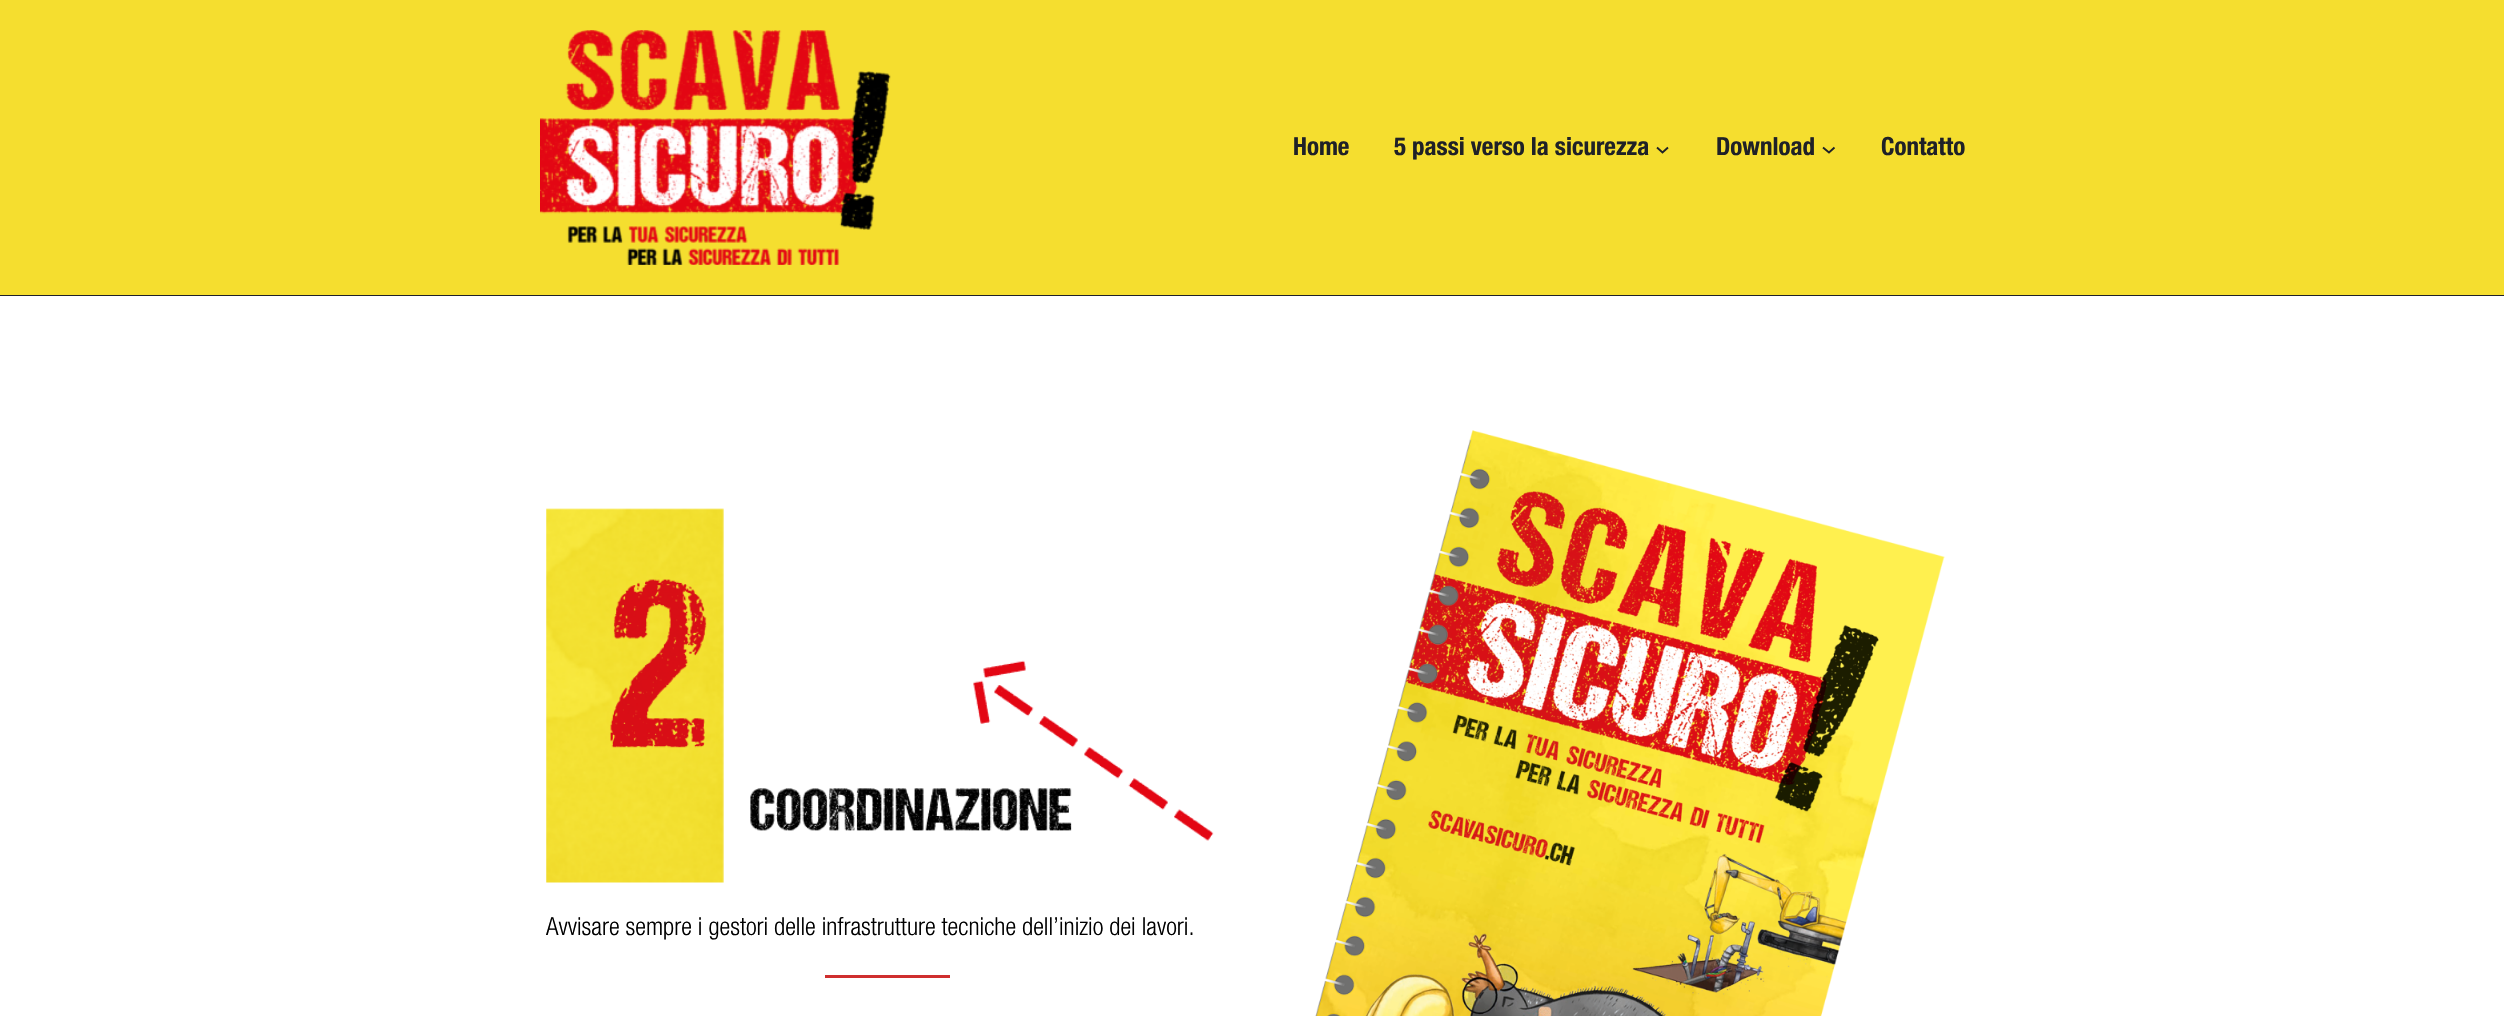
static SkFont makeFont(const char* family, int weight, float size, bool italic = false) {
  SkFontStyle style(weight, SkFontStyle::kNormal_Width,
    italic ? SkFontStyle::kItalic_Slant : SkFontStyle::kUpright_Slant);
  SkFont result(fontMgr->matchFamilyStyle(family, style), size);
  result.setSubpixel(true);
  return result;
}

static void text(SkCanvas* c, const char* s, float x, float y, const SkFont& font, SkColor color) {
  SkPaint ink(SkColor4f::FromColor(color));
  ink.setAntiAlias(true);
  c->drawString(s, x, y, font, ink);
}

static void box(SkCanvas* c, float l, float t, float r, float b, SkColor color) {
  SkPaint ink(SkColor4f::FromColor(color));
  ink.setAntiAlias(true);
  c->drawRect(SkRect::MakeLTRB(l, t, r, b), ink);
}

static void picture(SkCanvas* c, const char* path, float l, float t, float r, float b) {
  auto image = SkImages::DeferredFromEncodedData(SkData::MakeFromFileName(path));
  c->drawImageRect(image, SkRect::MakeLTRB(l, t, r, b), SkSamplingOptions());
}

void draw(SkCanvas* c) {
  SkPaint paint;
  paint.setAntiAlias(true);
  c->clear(0xfff5de2f);
  box(c, 0, 295, 2504, 296, 0xff1f2127);
  picture(c, "img_01.png", 540, 30, 891, 265);
  SkFont face1 = makeFont("Helvetica Neue", 700, 25);
  text(c, "Home", 1293, 155, face1, 0xff1f2127);
  text(c, "5 passi verso la sicurezza", 1394, 155, face1, 0xff1f2127);
  paint.setStyle(SkPaint::kStroke_Style);
  paint.setStrokeWidth(1.9f);
  paint.setColor(0xff1f2127);
  c->drawPath(SkPathBuilder().moveTo(1657, 147.5f).lineTo(1662.5f, 152.5f).lineTo(1668, 147.5f).detach(), paint);
  text(c, "Download", 1716, 155, face1, 0xff1f2127);
  c->drawPath(SkPathBuilder().moveTo(1823, 147.5f).lineTo(1829, 152.5f).lineTo(1834.5f, 147.5f).detach(), paint);
  text(c, "Contatto", 1881, 155, face1, 0xff1f2127);
  box(c, 0, 296, 2504, 1016, 0xffffffff);
  picture(c, "img_02.png", 546, 508, 1214, 883);
  SkFont face2 = makeFont("Helvetica Neue", 300, 25);
  text(c, "Avvisare sempre i gestori delle infrastrutture tecniche dell’inizio dei lavori.", 546, 935, face2, 0xff000000);
  box(c, 825, 975, 950, 978, 0xffcf2e2e);
  picture(c, "img_03.png", 1315, 430, 1945, 1016);
}
